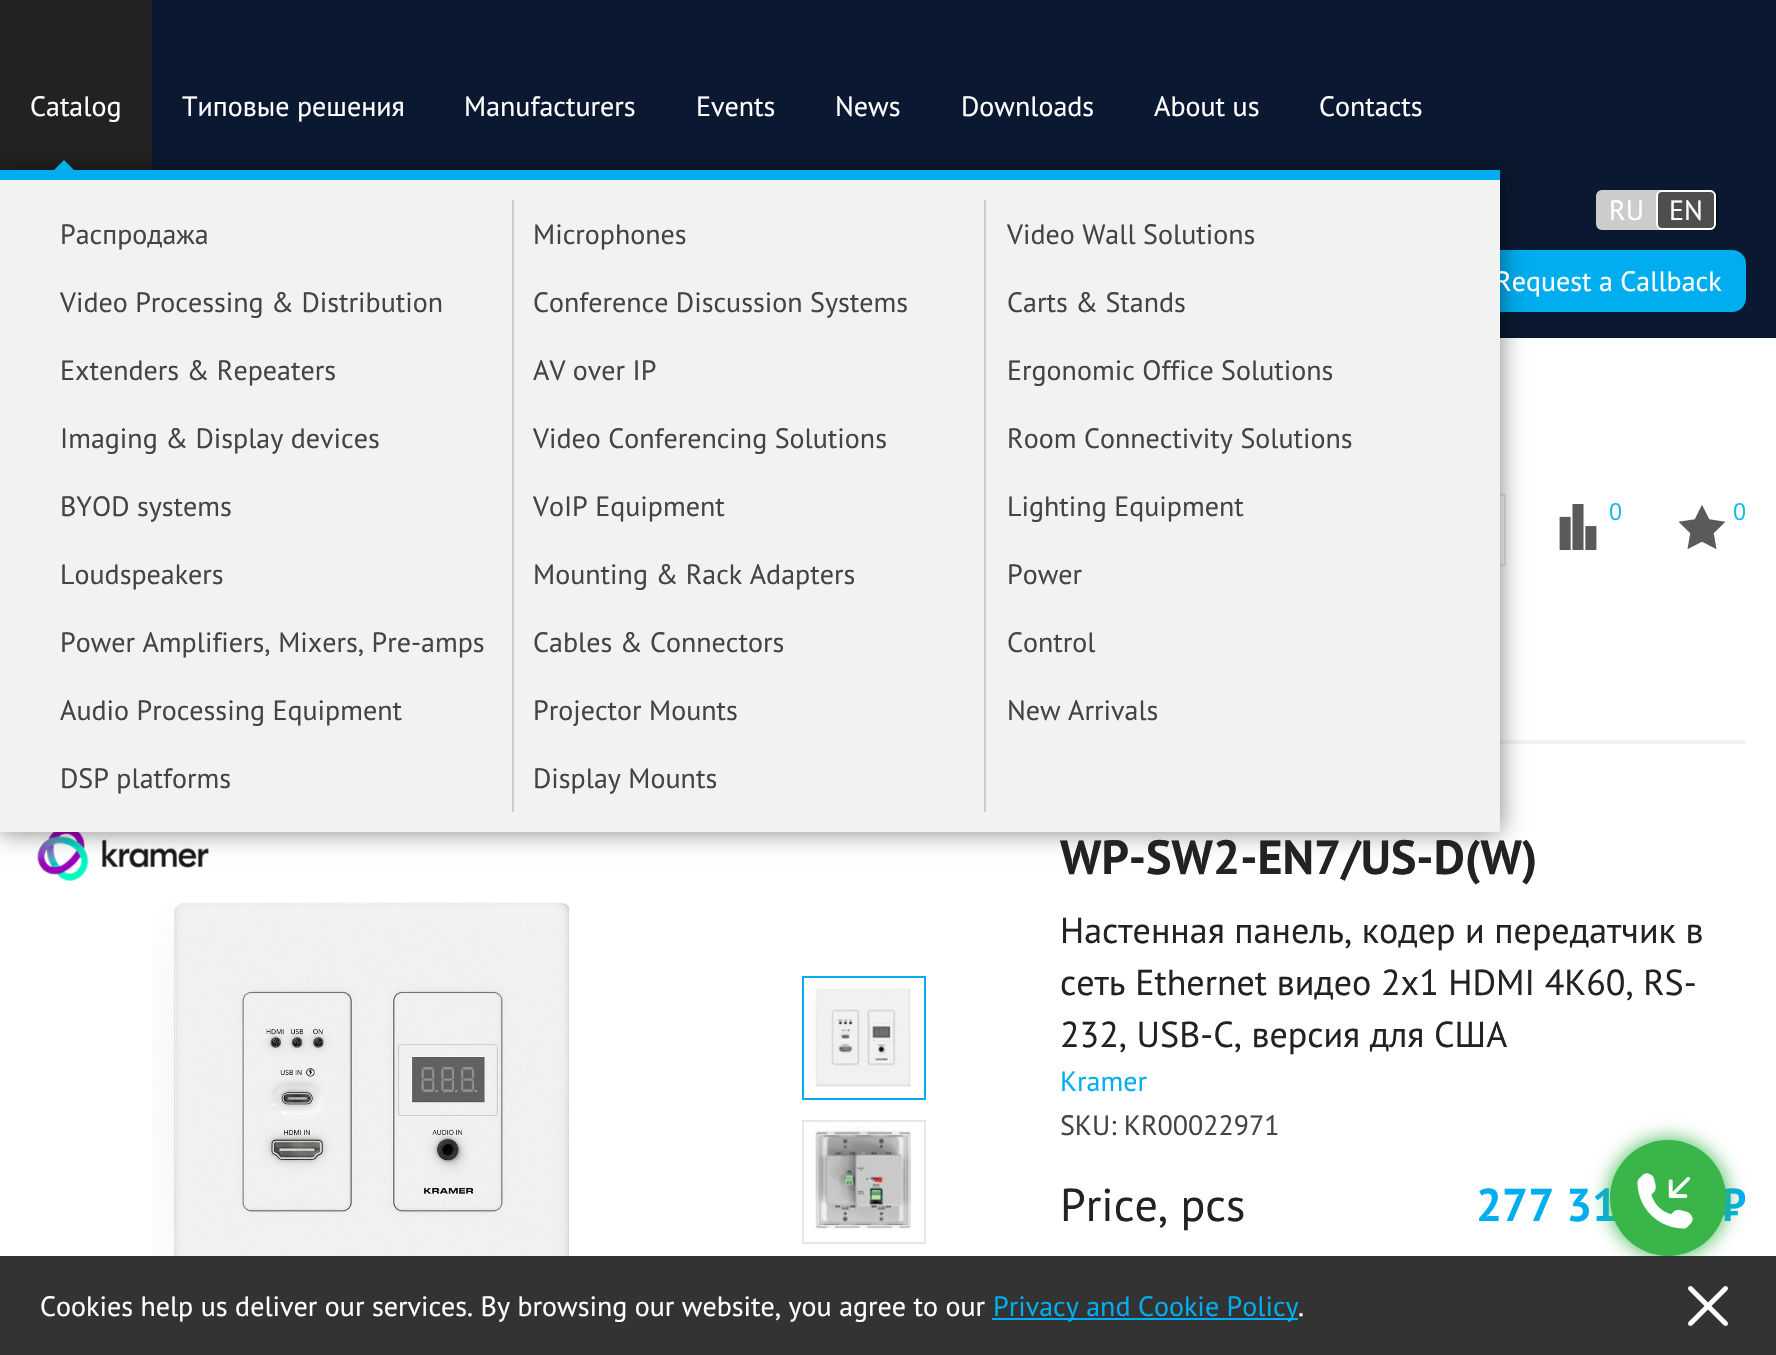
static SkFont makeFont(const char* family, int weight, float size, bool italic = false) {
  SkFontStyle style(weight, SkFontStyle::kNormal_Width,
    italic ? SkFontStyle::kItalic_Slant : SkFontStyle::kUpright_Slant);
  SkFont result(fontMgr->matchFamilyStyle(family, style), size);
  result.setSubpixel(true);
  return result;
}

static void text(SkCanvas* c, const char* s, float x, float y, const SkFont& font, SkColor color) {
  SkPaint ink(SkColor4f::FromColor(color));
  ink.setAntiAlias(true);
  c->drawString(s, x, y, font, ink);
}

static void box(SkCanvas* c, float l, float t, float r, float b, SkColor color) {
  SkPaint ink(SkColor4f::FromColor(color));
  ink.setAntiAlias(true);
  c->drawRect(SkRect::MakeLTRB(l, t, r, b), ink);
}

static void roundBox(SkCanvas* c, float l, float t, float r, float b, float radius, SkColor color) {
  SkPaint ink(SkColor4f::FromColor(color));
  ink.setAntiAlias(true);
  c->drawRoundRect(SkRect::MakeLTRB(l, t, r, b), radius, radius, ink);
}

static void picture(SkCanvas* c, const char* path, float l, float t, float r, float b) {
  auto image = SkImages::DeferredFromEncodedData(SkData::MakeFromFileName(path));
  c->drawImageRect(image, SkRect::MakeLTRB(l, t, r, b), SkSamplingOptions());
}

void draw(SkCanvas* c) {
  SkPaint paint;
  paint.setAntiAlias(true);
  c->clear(0xffffffff);
  box(c, 152, 0, 1776, 338, 0xff0a1931);
  box(c, 0, 0, 152, 170, 0xff222222);
  SkFont face1 = makeFont("PT Sans", 400, 28);
  text(c, "Catalog", 30, 116, face1, 0xffffffff);
  roundBox(c, 1472, 250, 1746, 312, 14, 0xff00adee);
  paint.setStyle(SkPaint::kStroke_Style);
  paint.setStrokeWidth(2);
  paint.setColor(0xffe7e7e7);
  c->drawRect(SkRect::MakeLTRB(31, 495, 1505, 565), paint);
  box(c, 1500, 740, 1746, 744, 0xfff2f2f2);
  picture(c, "img_03.png", 37, 832, 209, 881);
  paint.setStyle(SkPaint::kFill_Style);
  paint.setColor(0x80000000);
  paint.setMaskFilter(SkMaskFilter::MakeBlur(kNormal_SkBlurStyle, 12));
  c->drawRect(SkRect::MakeLTRB(0, 170, 1500, 832), paint);
  paint.setMaskFilter(nullptr);
  text(c, "Request a Callback", 1495, 291, face1, 0xffffffff);
  box(c, 0, 180, 1500, 832, 0xfff2f2f2);
  box(c, 0, 170, 1500, 180, 0xff00adee);
  paint.setColor(0xff00adee);
  c->drawPath(SkPathBuilder().moveTo(80, 176).lineTo(48, 176).lineTo(64, 160).close().detach(), paint);
  box(c, 512, 200, 514, 812, 0xffcccccc);
  text(c, "Распродажа", 60, 244, face1, 0xff444444);
  text(c, "Video Processing & Distribution", 60, 312, face1, 0xff444444);
  text(c, "Extenders & Repeaters", 60, 380, face1, 0xff444444);
  text(c, "Imaging & Display devices", 60, 448, face1, 0xff444444);
  text(c, "BYOD systems", 60, 516, face1, 0xff444444);
  text(c, "Loudspeakers", 60, 584, face1, 0xff444444);
  text(c, "Power Amplifiers, Mixers, Pre-amps", 60, 652, face1, 0xff444444);
  text(c, "Audio Processing Equipment", 60, 720, face1, 0xff444444);
  text(c, "DSP platforms", 60, 788, face1, 0xff444444);
  box(c, 984, 200, 986, 812, 0xffcccccc);
  text(c, "Microphones", 533, 244, face1, 0xff444444);
  text(c, "Conference Discussion Systems", 533, 312, face1, 0xff444444);
  text(c, "AV over IP", 533, 380, face1, 0xff444444);
  text(c, "Video Conferencing Solutions", 533, 448, face1, 0xff444444);
  text(c, "VoIP Equipment", 533, 516, face1, 0xff444444);
  text(c, "Mounting & Rack Adapters", 533, 584, face1, 0xff444444);
  text(c, "Cables & Connectors", 533, 652, face1, 0xff444444);
  text(c, "Projector Mounts", 533, 720, face1, 0xff444444);
  text(c, "Display Mounts", 533, 788, face1, 0xff444444);
  text(c, "Video Wall Solutions", 1007, 244, face1, 0xff444444);
  text(c, "Carts & Stands", 1007, 312, face1, 0xff444444);
  text(c, "Ergonomic Office Solutions", 1007, 380, face1, 0xff444444);
  text(c, "Room Connectivity Solutions", 1007, 448, face1, 0xff444444);
  text(c, "Lighting Equipment", 1007, 516, face1, 0xff444444);
  text(c, "Power", 1007, 584, face1, 0xff444444);
  text(c, "Control", 1007, 652, face1, 0xff444444);
  text(c, "New Arrivals", 1007, 720, face1, 0xff444444);
  text(c, "Типовые решения", 182, 116, face1, 0xffffffff);
  text(c, "Manufacturers", 464, 116, face1, 0xffffffff);
  text(c, "Events", 696, 116, face1, 0xffffffff);
  text(c, "News", 835, 116, face1, 0xffffffff);
  text(c, "Downloads", 961, 116, face1, 0xffffffff);
  text(c, "About us", 1154, 116, face1, 0xffffffff);
  text(c, "Contacts", 1319, 116, face1, 0xffffffff);
  roundBox(c, 1596, 190, 1716, 230, 6, 0xffcccccc);
  text(c, "RU", 1609, 220, face1, 0xffffffff);
  paint.setColor(0x73000000);
  paint.setMaskFilter(SkMaskFilter::MakeBlur(kNormal_SkBlurStyle, 1));
  c->drawRoundRect(SkRect::MakeLTRB(1658, 190, 1718, 230), 6, 6, paint);
  paint.setMaskFilter(nullptr);
  paint.setColor(0xff4e4e4e);
  c->drawRoundRect(SkRect::MakeLTRB(1657, 191, 1715, 229), 5, 5, paint);
  paint.setStyle(SkPaint::kStroke_Style);
  paint.setColor(0xffffffff);
  c->drawRoundRect(SkRect::MakeLTRB(1657, 191, 1715, 229), 5, 5, paint);
  text(c, "EN", 1669, 220, face1, 0xffffffff);
  picture(c, "img_01.png", 1559, 504, 1597, 550);
  SkFont face2 = makeFont("PT Sans", 400, 24);
  text(c, "0", 1609, 520, face2, 0xff1ab5f0);
  picture(c, "img_02.png", 1678, 505, 1726, 550);
  text(c, "0", 1733, 520, face2, 0xff1ab5f0);
  picture(c, "img_04.png", 152, 901, 570, 1256);
  paint.setColor(0xff00adee);
  c->drawRect(SkRect::MakeLTRB(803, 977, 925, 1099), paint);
  picture(c, "img_05.png", 811, 988, 911, 1087);
  paint.setColor(0xffe7e7e7);
  c->drawRect(SkRect::MakeLTRB(803, 1121, 925, 1243), paint);
  picture(c, "img_06.png", 815, 1126, 912, 1229);
  SkFont face3 = makeFont("PT Sans", 700, 48);
  text(c, "WP-SW2-EN7/US-D(W)", 1060, 874, face3, 0xff222222);
  SkFont face4 = makeFont("PT Sans", 400, 36);
  text(c, "Настенная панель, кодер и передатчик в", 1060, 943, face4, 0xff222222);
  text(c, "сеть Ethernet видео 2х1 HDMI 4К60, RS-", 1060, 995, face4, 0xff222222);
  text(c, "232, USB-C, версия для США", 1060, 1047, face4, 0xff222222);
  text(c, "Kramer", 1060, 1091, face1, 0xff00adee);
  text(c, "SKU: KR00022971", 1060, 1135, face1, 0xff444444);
  SkFont face5 = makeFont("PT Sans", 400, 46);
  text(c, "Price, pcs", 1060, 1221, face5, 0xff222222);
  SkFont face6 = makeFont("PT Sans", 700, 46);
  text(c, "277 31", 1476, 1221, face6, 0xff00adee);
  text(c, "₽", 1720, 1221, face6, 0xff00adee);
  paint.setStyle(SkPaint::kFill_Style);
  paint.setColor(0xff39b54a);
  paint.setMaskFilter(SkMaskFilter::MakeBlur(kNormal_SkBlurStyle, 10));
  c->drawRoundRect(SkRect::MakeLTRB(1610, 1140, 1726, 1256), 58, 58, paint);
  paint.setMaskFilter(nullptr);
  c->drawCircle(1668, 1198, 58, paint);
  picture(c, "img_07.png", 1637, 1173, 1693, 1229);
  box(c, 0, 1256, 1776, 1355, 0xff333333);
  text(c, "Cookies help us deliver our services. By browsing our website, you agree to our", 40, 1316, face1, 0xffffffff);
  box(c, 992, 1318, 1298, 1320, 0xff00adee);
  text(c, "Privacy and Cookie Policy", 993, 1316, face1, 0xff00adee);
  text(c, ".", 1298, 1316, face1, 0xffffffff);
  picture(c, "img_08.png", 1688, 1286, 1728, 1326);
}
